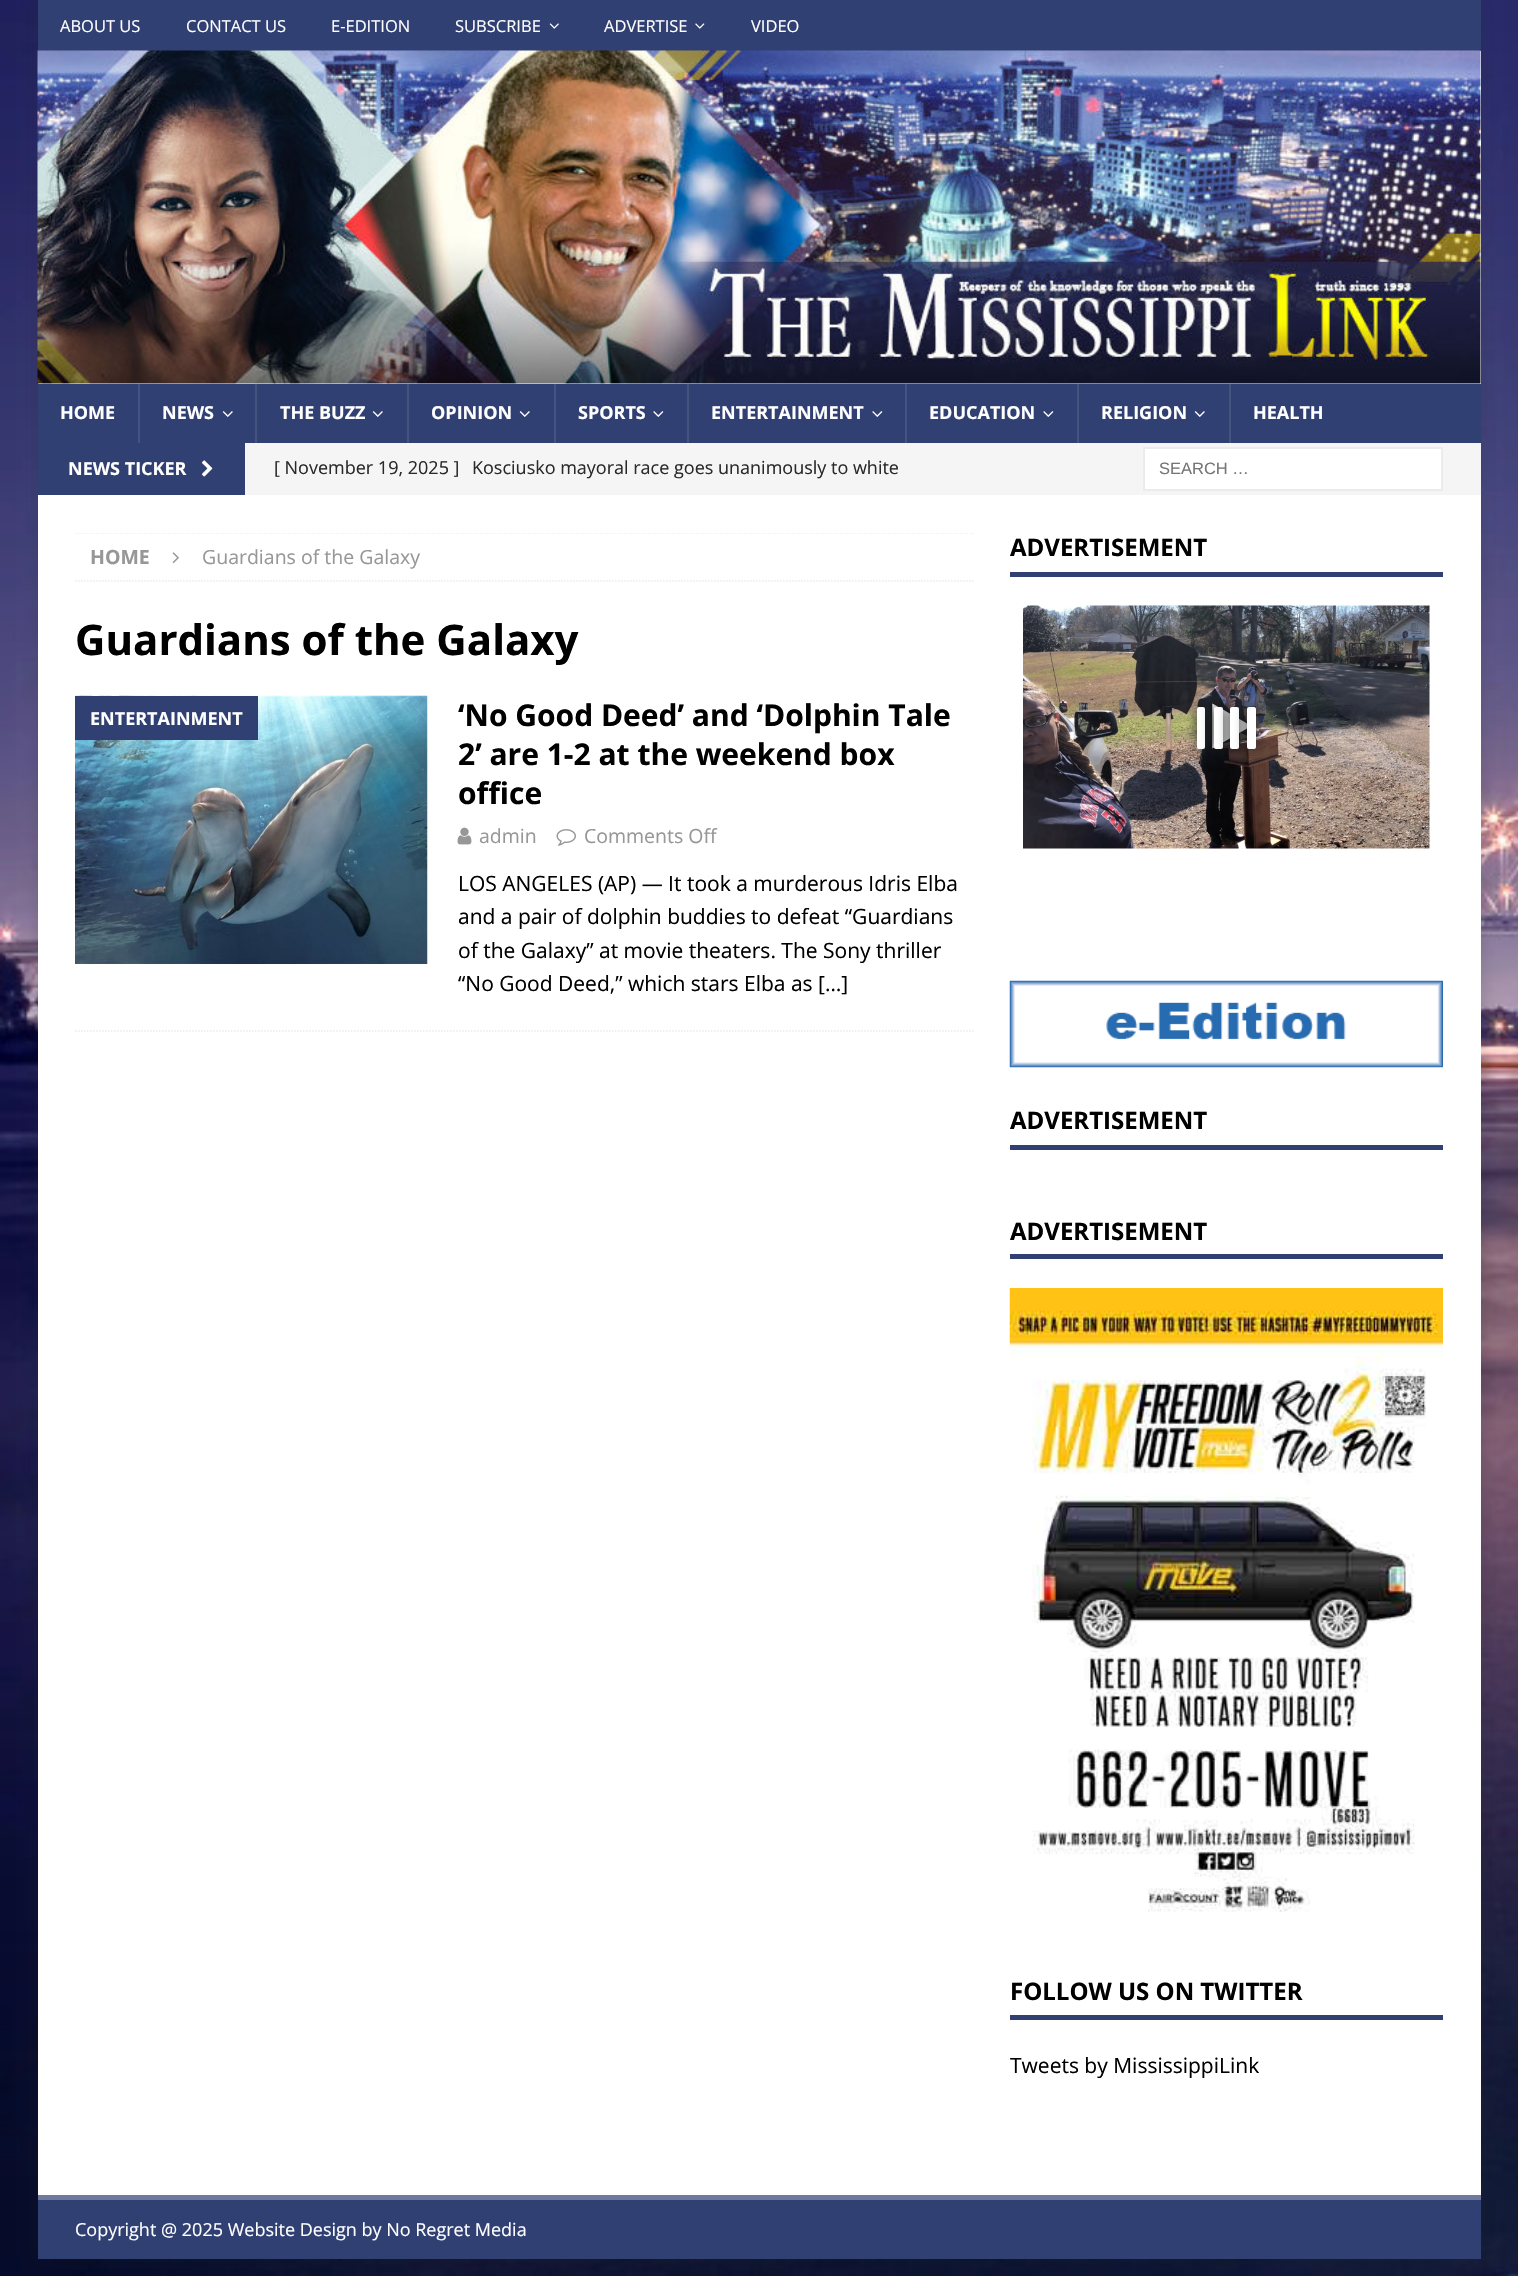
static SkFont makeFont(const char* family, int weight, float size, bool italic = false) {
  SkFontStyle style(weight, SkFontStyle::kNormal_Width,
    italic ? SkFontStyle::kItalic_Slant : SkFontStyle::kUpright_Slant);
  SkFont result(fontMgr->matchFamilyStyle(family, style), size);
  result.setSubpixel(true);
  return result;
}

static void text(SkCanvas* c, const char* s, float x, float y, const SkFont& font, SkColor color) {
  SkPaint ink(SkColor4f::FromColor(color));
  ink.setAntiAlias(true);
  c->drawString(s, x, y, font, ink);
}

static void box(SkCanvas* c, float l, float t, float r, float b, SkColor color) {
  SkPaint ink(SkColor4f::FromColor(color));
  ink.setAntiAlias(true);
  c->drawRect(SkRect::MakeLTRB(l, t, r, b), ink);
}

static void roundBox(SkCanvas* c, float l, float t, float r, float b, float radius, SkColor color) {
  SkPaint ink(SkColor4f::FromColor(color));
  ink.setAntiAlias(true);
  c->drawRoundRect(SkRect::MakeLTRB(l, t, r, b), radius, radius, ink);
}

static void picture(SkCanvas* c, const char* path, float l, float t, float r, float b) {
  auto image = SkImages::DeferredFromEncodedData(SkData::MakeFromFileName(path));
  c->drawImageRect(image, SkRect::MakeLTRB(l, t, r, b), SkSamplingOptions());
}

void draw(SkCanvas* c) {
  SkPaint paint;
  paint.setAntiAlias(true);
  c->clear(0xffffffff);
  picture(c, "img_01.png", 0, 0, 1518, 2276);
  paint.setColor(0x2b323232);
  paint.setMaskFilter(SkMaskFilter::MakeBlur(kNormal_SkBlurStyle, 7.5f));
  c->drawRect(SkRect::MakeLTRB(38, -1, 1481, 2259), paint);
  paint.setMaskFilter(nullptr);
  box(c, 38, 0, 1481, 51, 0xff304073);
  SkFont face1 = makeFont("Open Sans", 400, 16.5f);
  text(c, "ABOUT US", 60, 32, face1, 0xffffffff);
  text(c, "CONTACT US", 186, 32, face1, 0xffffffff);
  text(c, "E-EDITION", 331, 32, face1, 0xffffffff);
  text(c, "SUBSCRIBE", 455, 32, face1, 0xffffffff);
  picture(c, "img_02.png", 549, 23, 559, 29);
  text(c, "ADVERTISE", 604, 32, face1, 0xffffffff);
  picture(c, "img_03.png", 695, 23, 705, 29);
  text(c, "VIDEO", 751, 32, face1, 0xffffffff);
  box(c, 38, 51, 1481, 384, 0xffffffff);
  picture(c, "img_04.png", 37, 50, 1481, 384);
  box(c, 38, 384, 1481, 443, 0xff304073);
  SkFont face2 = makeFont("Open Sans", 700, 18);
  text(c, "HOME", 60, 419, face2, 0xffffffff);
  box(c, 138, 384, 140, 443, 0xff455381);
  text(c, "NEWS", 162, 419, face2, 0xffffffff);
  picture(c, "img_05.png", 222, 411, 233, 417);
  box(c, 255, 384, 257, 443, 0xff455381);
  text(c, "THE BUZZ", 280, 419, face2, 0xffffffff);
  picture(c, "img_05.png", 372, 411, 383, 417);
  box(c, 407, 384, 409, 443, 0xff455381);
  text(c, "OPINION", 431, 419, face2, 0xffffffff);
  picture(c, "img_05.png", 519, 411, 530, 417);
  box(c, 554, 384, 556, 443, 0xff455381);
  text(c, "SPORTS", 578, 419, face2, 0xffffffff);
  picture(c, "img_06.png", 653, 411, 664, 417);
  box(c, 687, 384, 689, 443, 0xff455381);
  text(c, "ENTERTAINMENT", 711, 419, face2, 0xffffffff);
  picture(c, "img_06.png", 872, 411, 883, 417);
  box(c, 905, 384, 907, 443, 0xff455381);
  text(c, "EDUCATION", 929, 419, face2, 0xffffffff);
  picture(c, "img_06.png", 1043, 411, 1054, 417);
  box(c, 1077, 384, 1079, 443, 0xff455381);
  text(c, "RELIGION", 1101, 419, face2, 0xffffffff);
  picture(c, "img_05.png", 1194, 411, 1205, 417);
  box(c, 1229, 384, 1231, 443, 0xff455381);
  text(c, "HEALTH", 1253, 419, face2, 0xffffffff);
  box(c, 245, 443, 1481, 495, 0xfff5f5f5);
  box(c, 38, 443, 245, 495, 0xff304073);
  text(c, "NEWS TICKER", 68, 475, face2, 0xffffffff);
  picture(c, "img_07.png", 201, 460, 213, 477);
  SkFont face3 = makeFont("Open Sans", 400, 18);
  text(c, "[ November 19, 2025 ]", 274, 474, face3, 0xff2a2a2a);
  text(c, "Kosciusko mayoral race goes unanimously to white", 472, 474, face3, 0xff2a2a2a);
  paint.setColor(0xffffffff);
  c->drawRect(SkRect::MakeLTRB(1144, 448, 1442, 490), paint);
  paint.setStyle(SkPaint::kStroke_Style);
  paint.setStrokeWidth(2);
  paint.setColor(0xffebebeb);
  c->drawRect(SkRect::MakeLTRB(1144, 448, 1442, 490), paint);
  SkFont face4 = makeFont("Liberation Sans", 400, 16.5f);
  text(c, "SEARCH …", 1159, 474, face4, 0xff757575);
  box(c, 38, 495, 1481, 2195, 0xffffffff);
  c->save();
  c->clipRect(SkRect::MakeLTRB(75, 533, 975, 1032));
  paint.setStrokeWidth(1.5f);
  paint.setPathEffect(SkDashPathEffect::Make({{1.5f, 1.5f}}, 0));
  c->drawPath(SkPathBuilder().moveTo(75, 533).lineTo(975, 533).detach(), paint);
  paint.setPathEffect(nullptr);
  c->restore();
  paint.setPathEffect(SkDashPathEffect::Make({{1.5f, 1.5f}}, 0));
  c->drawPath(SkPathBuilder().moveTo(75, 581).lineTo(975, 581).detach(), paint);
  paint.setPathEffect(nullptr);
  SkFont face5 = makeFont("Open Sans", 700, 19.5f);
  text(c, "HOME", 90, 564, face5, 0xff979797);
  picture(c, "img_08.png", 172, 552, 179, 564);
  SkFont face6 = makeFont("Open Sans", 400, 19.5f);
  text(c, "Guardians of the Galaxy", 202, 564, face6, 0xff979797);
  SkFont face7 = makeFont("Open Sans", 700, 42);
  text(c, "Guardians of the Galaxy", 75, 655, face7, 0xff000000);
  paint.setPathEffect(SkDashPathEffect::Make({{1.5f, 1.5f}}, 0));
  c->drawPath(SkPathBuilder().moveTo(75, 1031).lineTo(975, 1031).detach(), paint);
  paint.setPathEffect(nullptr);
  picture(c, "img_09.png", 75, 695, 428, 964);
  box(c, 75, 696, 258, 740, 0xff304073);
  text(c, "ENTERTAINMENT", 90, 725, face2, 0xffffffff);
  SkFont face8 = makeFont("Open Sans", 700, 30);
  text(c, "‘No Good Deed’ and ‘Dolphin Tale", 458, 726, face8, 0xff000000);
  text(c, "2’ are 1-2 at the weekend box", 458, 765, face8, 0xff000000);
  text(c, "office", 458, 804, face8, 0xff000000);
  picture(c, "img_10.png", 457, 827, 472, 845);
  text(c, "admin", 479, 843, face6, 0xff979797);
  picture(c, "img_11.png", 556, 829, 576, 846);
  text(c, "Comments Off", 584, 843, face6, 0xff979797);
  SkFont face9 = makeFont("Open Sans", 400, 21);
  text(c, "LOS ANGELES (AP) — It took a murderous Idris Elba", 458, 891, face9, 0xff000000);
  text(c, "and a pair of dolphin buddies to defeat “Guardians", 458, 924, face9, 0xff000000);
  text(c, "of the Galaxy” at movie theaters. The Sony thriller", 458, 958, face9, 0xff000000);
  text(c, "“No Good Deed,” which stars Elba as […]", 458, 991, face9, 0xff000000);
  box(c, 1010, 572, 1443, 577, 0xff304073);
  SkFont face10 = makeFont("Open Sans", 700, 24);
  text(c, "ADVERTISEMENT", 1010, 556, face10, 0xff000000);
  picture(c, "img_12.png", 1023, 605, 1430, 849);
  picture(c, "img_13.png", 1210, 703, 1247, 749);
  paint.setStyle(SkPaint::kFill_Style);
  paint.setColor(0xff222222);
  paint.setMaskFilter(SkMaskFilter::MakeBlur(kNormal_SkBlurStyle, 6));
  c->drawRoundRect(SkRect::MakeLTRB(1197, 707, 1205, 749), 2, 2, paint);
  paint.setMaskFilter(nullptr);
  roundBox(c, 1197, 707, 1205, 749, 2, 0xffffffff);
  paint.setMaskFilter(SkMaskFilter::MakeBlur(kNormal_SkBlurStyle, 6));
  c->drawRoundRect(SkRect::MakeLTRB(1214, 707, 1223, 749), 2, 2, paint);
  paint.setMaskFilter(nullptr);
  roundBox(c, 1214, 707, 1223, 749, 2, 0xffffffff);
  paint.setMaskFilter(SkMaskFilter::MakeBlur(kNormal_SkBlurStyle, 6));
  c->drawRoundRect(SkRect::MakeLTRB(1230, 707, 1239, 749), 2, 2, paint);
  paint.setMaskFilter(nullptr);
  roundBox(c, 1230, 707, 1239, 749, 2, 0xffffffff);
  paint.setMaskFilter(SkMaskFilter::MakeBlur(kNormal_SkBlurStyle, 6));
  c->drawRoundRect(SkRect::MakeLTRB(1247, 707, 1256, 749), 2, 2, paint);
  paint.setMaskFilter(nullptr);
  roundBox(c, 1247, 707, 1256, 749, 2, 0xffffffff);
  picture(c, "img_14.png", 1009, 980, 1443, 1068);
  box(c, 1010, 1145, 1443, 1150, 0xff304073);
  text(c, "ADVERTISEMENT", 1010, 1129, face10, 0xff000000);
  box(c, 1010, 1254, 1443, 1259, 0xff304073);
  text(c, "ADVERTISEMENT", 1010, 1240, face10, 0xff000000);
  picture(c, "img_15.png", 1009, 1288, 1443, 1912);
  box(c, 1010, 2015, 1443, 2020, 0xff304073);
  text(c, "FOLLOW US ON TWITTER", 1010, 2000, face10, 0xff000000);
  text(c, "Tweets by MississippiLink", 1010, 2073, face9, 0xff000000);
  box(c, 38, 2200, 1481, 2259, 0xff304073);
  box(c, 38, 2195, 1481, 2200, 0xff6e799d);
  text(c, "Copyright @ 2025 Website Design by No Regret Media", 75, 2236, face3, 0xffffffff);
}
